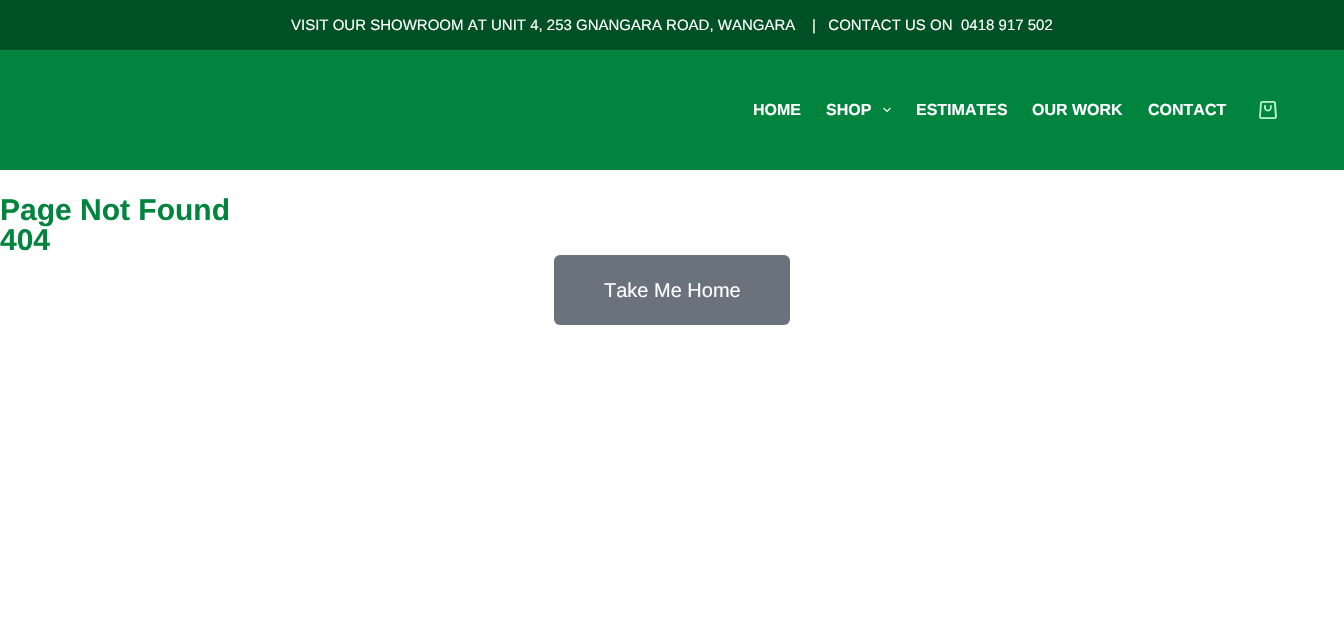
static SkFont makeFont(const char* family, int weight, float size, bool italic = false) {
  SkFontStyle style(weight, SkFontStyle::kNormal_Width,
    italic ? SkFontStyle::kItalic_Slant : SkFontStyle::kUpright_Slant);
  SkFont result(fontMgr->matchFamilyStyle(family, style), size);
  result.setSubpixel(true);
  return result;
}

static void text(SkCanvas* c, const char* s, float x, float y, const SkFont& font, SkColor color) {
  SkPaint ink(SkColor4f::FromColor(color));
  ink.setAntiAlias(true);
  c->drawString(s, x, y, font, ink);
}

static void box(SkCanvas* c, float l, float t, float r, float b, SkColor color) {
  SkPaint ink(SkColor4f::FromColor(color));
  ink.setAntiAlias(true);
  c->drawRect(SkRect::MakeLTRB(l, t, r, b), ink);
}

static void roundBox(SkCanvas* c, float l, float t, float r, float b, float radius, SkColor color) {
  SkPaint ink(SkColor4f::FromColor(color));
  ink.setAntiAlias(true);
  c->drawRoundRect(SkRect::MakeLTRB(l, t, r, b), radius, radius, ink);
}

static void picture(SkCanvas* c, const char* path, float l, float t, float r, float b) {
  auto image = SkImages::DeferredFromEncodedData(SkData::MakeFromFileName(path));
  c->drawImageRect(image, SkRect::MakeLTRB(l, t, r, b), SkSamplingOptions());
}

void draw(SkCanvas* c) {
  SkPaint paint;
  paint.setAntiAlias(true);
  c->clear(0xffffffff);
  box(c, 0, 0, 1344, 50, 0xff005026);
  SkFont face1 = makeFont("Liberation Sans", 400, 15);
  text(c, "VISIT OUR SHOWROOM AT UNIT 4, 253 GNANGARA ROAD, WANGARA    |   CONTACT US ON", 291, 30, face1, 0xffffffff);
  text(c, "0418 917 502", 961, 30, face1, 0xffffffff);
  box(c, 0, 50, 1344, 170, 0xff00843e);
  SkFont face2 = makeFont("Liberation Sans", 700, 16);
  text(c, "HOME", 753, 115, face2, 0xffffffff);
  text(c, "SHOP", 826, 115, face2, 0xffffffff);
  picture(c, "img_01.png", 883, 107, 891, 113);
  text(c, "ESTIMATES", 916, 115, face2, 0xffffffff);
  text(c, "OUR WORK", 1032, 115, face2, 0xffffffff);
  text(c, "CONTACT", 1148, 115, face2, 0xffffffff);
  picture(c, "img_02.png", 1259, 101, 1277, 119);
  SkFont face3 = makeFont("Liberation Sans", 700, 30);
  text(c, "Page Not Found", 0, 220, face3, 0xff00843e);
  text(c, "404", 0, 250, face3, 0xff00843e);
  roundBox(c, 554, 255, 790, 325, 6, 0xff69727d);
  SkFont face4 = makeFont("Liberation Sans", 400, 20);
  text(c, "Take Me Home", 604, 297, face4, 0xffffffff);
}
